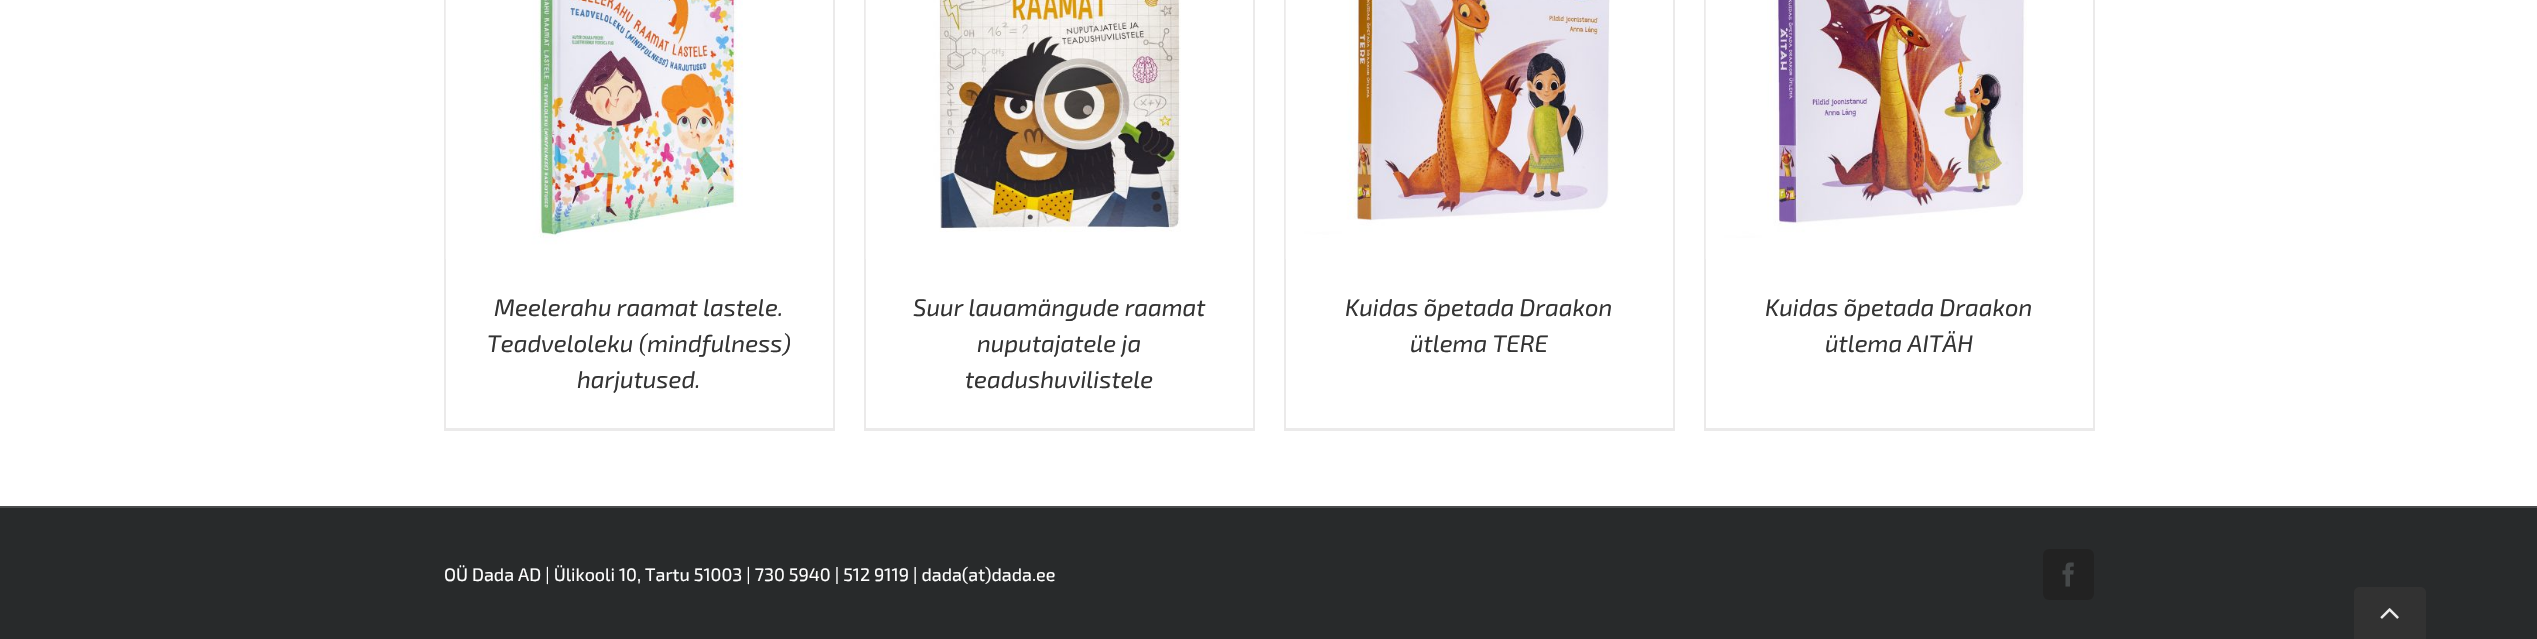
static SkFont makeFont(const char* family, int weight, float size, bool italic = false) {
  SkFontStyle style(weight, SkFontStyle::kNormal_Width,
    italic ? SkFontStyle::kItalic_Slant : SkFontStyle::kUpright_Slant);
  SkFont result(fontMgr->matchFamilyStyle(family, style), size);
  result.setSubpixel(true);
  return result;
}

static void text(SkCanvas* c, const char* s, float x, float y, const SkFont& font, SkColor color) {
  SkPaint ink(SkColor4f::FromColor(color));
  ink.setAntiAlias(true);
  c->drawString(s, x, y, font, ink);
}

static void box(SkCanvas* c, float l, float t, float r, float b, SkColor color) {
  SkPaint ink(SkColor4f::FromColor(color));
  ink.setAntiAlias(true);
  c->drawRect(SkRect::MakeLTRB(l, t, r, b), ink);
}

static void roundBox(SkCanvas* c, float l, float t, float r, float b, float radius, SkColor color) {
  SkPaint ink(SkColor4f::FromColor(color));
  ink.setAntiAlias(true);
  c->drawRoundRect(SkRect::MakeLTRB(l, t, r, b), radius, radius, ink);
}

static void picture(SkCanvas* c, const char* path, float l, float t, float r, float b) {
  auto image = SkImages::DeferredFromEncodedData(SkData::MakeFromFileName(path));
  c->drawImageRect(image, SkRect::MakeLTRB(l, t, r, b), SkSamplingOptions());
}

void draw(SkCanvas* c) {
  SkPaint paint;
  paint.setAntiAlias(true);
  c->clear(0xffffffff);
  box(c, 833, 0, 835, 431, 0xffebeaea);
  box(c, 444, 428, 834, 431, 0xffebeaea);
  box(c, 444, 0, 446, 431, 0xffebeaea);
  picture(c, "img_01.png", 445, 0, 743, 259);
  SkFont face1 = makeFont("Exo 2", 400, 24, true);
  text(c, "Meelerahu raamat lastele.", 494, 316, face1, 0xff333333);
  text(c, "Teadveloleku (mindfulness)", 487, 352, face1, 0xff333333);
  text(c, "harjutused.", 577, 388, face1, 0xff333333);
  box(c, 1253, 0, 1255, 431, 0xffebeaea);
  box(c, 864, 428, 1254, 431, 0xffebeaea);
  box(c, 864, 0, 866, 431, 0xffebeaea);
  picture(c, "img_02.png", 865, 0, 1181, 259);
  text(c, "Suur lauamängude raamat", 913, 316, face1, 0xff333333);
  text(c, "nuputajatele ja", 977, 352, face1, 0xff333333);
  text(c, "teadushuvilistele", 965, 388, face1, 0xff333333);
  box(c, 1673, 0, 1675, 431, 0xffebeaea);
  box(c, 1284, 428, 1674, 431, 0xffebeaea);
  box(c, 1284, 0, 1286, 431, 0xffebeaea);
  picture(c, "img_03.png", 1285, 0, 1610, 259);
  text(c, "Kuidas õpetada Draakon", 1345, 316, face1, 0xff333333);
  text(c, "ütlema TERE", 1410, 352, face1, 0xff333333);
  box(c, 2093, 0, 2095, 431, 0xffebeaea);
  box(c, 1704, 428, 2094, 431, 0xffebeaea);
  box(c, 1704, 0, 1706, 431, 0xffebeaea);
  picture(c, "img_04.png", 1705, 0, 2027, 259);
  text(c, "Kuidas õpetada Draakon", 1765, 316, face1, 0xff333333);
  text(c, "ütlema AITÄH", 1825, 352, face1, 0xff333333);
  box(c, 0, 508, 2537, 639, 0xff282a2b);
  box(c, 0, 506, 2537, 508, 0xff4b4c4d);
  SkFont face2 = makeFont("Exo 2", 400, 18);
  text(c, "OÜ Dada AD | Ülikooli 10, Tartu 51003 | 730 5940 | 512 9119 | dada(at)dada.ee", 444, 581, face2, 0xffffffff);
  roundBox(c, 2043, 549, 2094, 600, 6, 0xff222222);
  picture(c, "img_05.png", 2062, 562, 2074, 587);
  paint.setColor(0xff323232);
  c->drawPath(SkPathBuilder().moveTo(2360, 587).lineTo(2420, 587).cubicTo(2423.5f, 587, 2426, 589.5f, 2426, 593).lineTo(2426, 639).lineTo(2354, 639).lineTo(2354, 593).cubicTo(2354, 589.5f, 2356.5f, 587, 2360, 587).close().detach(), paint);
  picture(c, "img_06.png", 2380, 608, 2399, 619);
}
